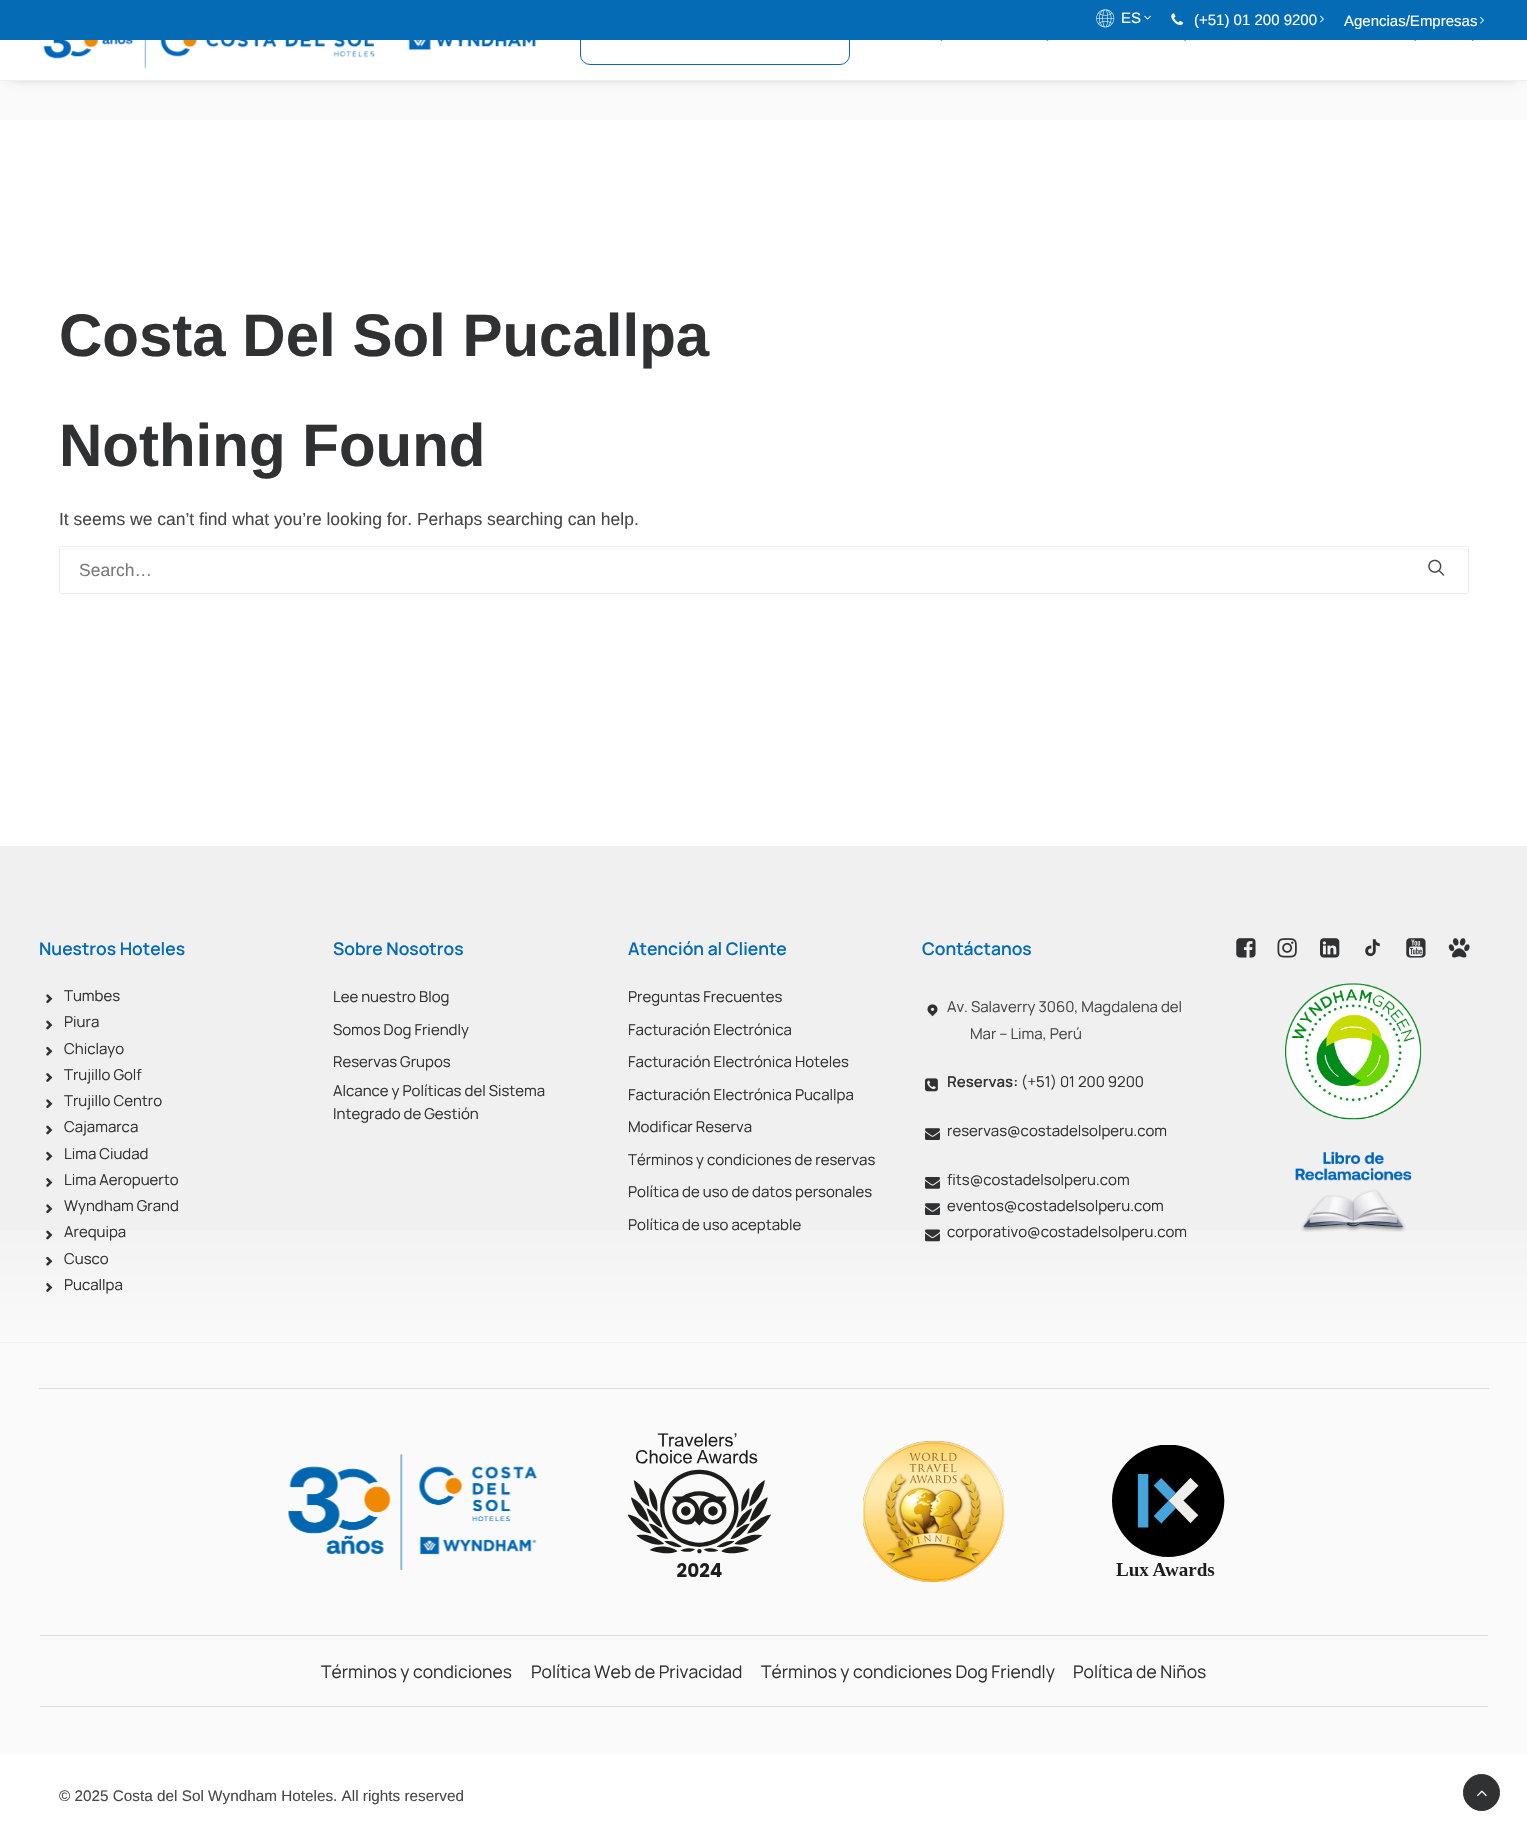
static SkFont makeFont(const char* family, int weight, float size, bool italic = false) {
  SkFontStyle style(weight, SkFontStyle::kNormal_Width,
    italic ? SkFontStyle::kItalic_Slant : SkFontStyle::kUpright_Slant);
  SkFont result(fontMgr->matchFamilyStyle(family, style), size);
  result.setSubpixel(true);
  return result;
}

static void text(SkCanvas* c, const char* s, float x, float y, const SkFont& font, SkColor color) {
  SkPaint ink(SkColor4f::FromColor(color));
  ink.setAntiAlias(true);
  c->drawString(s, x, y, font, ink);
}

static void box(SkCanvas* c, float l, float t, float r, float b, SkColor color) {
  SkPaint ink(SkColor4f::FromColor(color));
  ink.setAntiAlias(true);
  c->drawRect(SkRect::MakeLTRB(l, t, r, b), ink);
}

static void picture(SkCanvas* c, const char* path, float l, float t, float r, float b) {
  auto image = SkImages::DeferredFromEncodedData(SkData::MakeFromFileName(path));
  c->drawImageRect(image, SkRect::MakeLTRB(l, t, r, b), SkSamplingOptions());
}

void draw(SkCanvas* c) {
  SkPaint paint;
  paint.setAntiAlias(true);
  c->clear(0xfffafafa);
  paint.setColor(0x99000000);
  paint.setMaskFilter(SkMaskFilter::MakeBlur(kNormal_SkBlurStyle, 6));
  c->drawRect(SkRect::MakeLTRB(11, 18, 1516, 74), paint);
  paint.setMaskFilter(nullptr);
  box(c, 0, 40, 1527, 80, 0xffffffff);
  box(c, 0, 80, 1527, 81, 0xfff0f0f0);
  picture(c, "img_01.png", 43, 40, 536, 69);
  paint.setStyle(SkPaint::kStroke_Style);
  paint.setStrokeWidth(1);
  paint.setColor(0xff046bb4);
  c->drawRoundRect(SkRect::MakeLTRB(580.5f, 15.5f, 849.5f, 64.5f), 9.5f, 9.5f, paint);
  picture(c, "img_02.png", 940, 40, 943, 41);
  picture(c, "img_03.png", 1046, 40, 1049, 41);
  picture(c, "img_04.png", 1184, 40, 1186, 41);
  picture(c, "img_04.png", 1414, 40, 1416, 41);
  picture(c, "img_03.png", 1471, 40, 1474, 41);
  box(c, 0, 0, 1527, 40, 0xff046bb4);
  picture(c, "img_05.png", 1096, 9, 1115, 28);
  SkFont face1 = makeFont("Liberation Sans", 400, 15);
  text(c, "ES", 1121, 23, face1, 0xffffffff);
  picture(c, "img_06.png", 1144, 15, 1151, 20);
  picture(c, "img_07.png", 1171, 13, 1183, 26);
  text(c, "(+51) 01 200 9200", 1194, 25, face1, 0xffffffff);
  picture(c, "img_08.png", 1320, 15, 1324, 23);
  text(c, "Agencias/Empresas", 1344, 26, face1, 0xffffffff);
  picture(c, "img_09.png", 1480, 17, 1484, 24);
  box(c, 0, 120, 1527, 846, 0xffffffff);
  SkFont face2 = makeFont("Liberation Sans", 700, 60);
  text(c, "Costa Del Sol Pucallpa", 59, 356, face2, 0xff303133);
  text(c, "Nothing Found", 59, 466, face2, 0xff303133);
  SkFont face3 = makeFont("Liberation Sans", 400, 17.5f);
  text(c, "It seems we can’t find what you’re looking for. Perhaps searching can help.", 59, 525, face3, 0xff474747);
  paint.setStyle(SkPaint::kFill_Style);
  paint.setColor(0xfff9f9f9);
  c->drawPath(SkPathBuilder().moveTo(61, 550).lineTo(1466, 550).lineTo(1468, 551).lineTo(1468, 549).lineTo(1467, 548).lineTo(61, 548).cubicTo(60, 548, 60, 550, 60, 551).close().detach(), paint);
  paint.setStyle(SkPaint::kStroke_Style);
  paint.setColor(0xffeaeaea);
  c->drawRoundRect(SkRect::MakeLTRB(59.5f, 546.5f, 1468.5f, 593.5f), 2, 2, paint);
  text(c, "Search…", 79, 576, face3, 0xff797979);
  picture(c, "img_10.png", 1428, 559, 1445, 576);
  box(c, 0, 846, 1527, 1343, 0xfff0f0f0);
  SkFont face4 = makeFont("Manrope", 600, 17.5f);
  text(c, "Nuestros Hoteles", 39, 955, face4, 0xff046bb4);
  picture(c, "img_11.png", 46, 994, 53, 1004);
  SkFont face5 = makeFont("Manrope", 400, 15);
  text(c, "Tumbes", 64, 1001, face5, 0xff303133);
  picture(c, "img_12.png", 46, 1020, 53, 1030);
  text(c, "Piura", 64, 1027, face5, 0xff303133);
  picture(c, "img_13.png", 46, 1046, 53, 1056);
  text(c, "Chiclayo", 64, 1054, face5, 0xff303133);
  picture(c, "img_14.png", 46, 1073, 53, 1082);
  text(c, "Trujillo Golf", 64, 1080, face5, 0xff303133);
  picture(c, "img_11.png", 46, 1099, 53, 1109);
  text(c, "Trujillo Centro", 64, 1106, face5, 0xff303133);
  picture(c, "img_12.png", 46, 1125, 53, 1135);
  text(c, "Cajamarca", 64, 1132, face5, 0xff303133);
  picture(c, "img_13.png", 46, 1151, 53, 1161);
  text(c, "Lima Ciudad", 64, 1159, face5, 0xff303133);
  picture(c, "img_14.png", 46, 1178, 53, 1187);
  text(c, "Lima Aeropuerto", 64, 1185, face5, 0xff303133);
  picture(c, "img_15.png", 46, 1204, 53, 1214);
  text(c, "Wyndham Grand", 64, 1211, face5, 0xff303133);
  paint.setStyle(SkPaint::kFill_Style);
  {
    const SkColor colors[] = {0xfff0f0f0, 0xfffafafa};
    const float stops[] = {0, 1};
    const SkPoint ends[] = {{764, 1193}, {764, 1343}};
    paint.setShader(SkGradientShader::MakeLinear(ends, colors, stops, 2, SkTileMode::kClamp));
    paint.setAlpha(255);
  }
  c->drawRect(SkRect::MakeLTRB(0, 1230, 1527, 1342), paint);
  picture(c, "img_16.png", 46, 1230, 53, 1240);
  text(c, "Arequipa", 64, 1237, face5, 0xff303133);
  picture(c, "img_17.png", 46, 1256, 53, 1266);
  text(c, "Cusco", 64, 1264, face5, 0xff303133);
  picture(c, "img_18.png", 46, 1283, 53, 1292);
  text(c, "Pucallpa", 64, 1290, face5, 0xff303133);
  text(c, "Sobre Nosotros", 333, 955, face4, 0xff046bb4);
  text(c, "Lee nuestro Blog", 333, 1002, face5, 0xff303133);
  text(c, "Somos Dog Friendly", 333, 1035, face5, 0xff303133);
  text(c, "Reservas Grupos", 333, 1067, face5, 0xff303133);
  text(c, "Alcance y Políticas del Sistema", 333, 1096, face5, 0xff303133);
  text(c, "Integrado de Gestión", 333, 1119, face5, 0xff303133);
  text(c, "Atención al Cliente", 628, 955, face4, 0xff046bb4);
  text(c, "Preguntas Frecuentes", 628, 1002, face5, 0xff303133);
  text(c, "Facturación Electrónica", 628, 1035, face5, 0xff303133);
  text(c, "Facturación Electrónica Hoteles", 628, 1067, face5, 0xff303133);
  text(c, "Facturación Electrónica Pucallpa", 628, 1100, face5, 0xff303133);
  text(c, "Modificar Reserva", 628, 1132, face5, 0xff303133);
  text(c, "Términos y condiciones de reservas", 628, 1165, face5, 0xff303133);
  text(c, "Política de uso de datos personales", 628, 1197, face5, 0xff303133);
  text(c, "Política de uso aceptable", 628, 1230, face5, 0xff303133);
  text(c, "Contáctanos", 922, 955, face4, 0xff046bb4);
  picture(c, "img_19.png", 927, 1004, 938, 1017);
  text(c, "Av. Salaverry 3060, Magdalena del", 947, 1012, face5, 0xff474747);
  text(c, "Mar – Lima, Perú", 970, 1039, face5, 0xff474747);
  picture(c, "img_20.png", 925, 1078, 938, 1092);
  SkFont face6 = makeFont("Manrope", 600, 15);
  text(c, "Reservas:", 947, 1087, face6, 0xff303133);
  text(c, "(+51) 01 200 9200", 1021, 1087, face5, 0xff303133);
  picture(c, "img_21.png", 925, 1128, 940, 1140);
  text(c, "reservas@costadelsolperu.com", 947, 1136, face5, 0xff303133);
  picture(c, "img_22.png", 925, 1177, 940, 1189);
  text(c, "fits@costadelsolperu.com", 947, 1185, face5, 0xff303133);
  picture(c, "img_23.png", 925, 1203, 940, 1215);
  text(c, "eventos@costadelsolperu.com", 947, 1211, face5, 0xff303133);
  picture(c, "img_24.png", 925, 1229, 940, 1242);
  text(c, "corporativo@costadelsolperu.com", 947, 1237, face5, 0xff303133);
  picture(c, "img_25.png", 1236, 938, 1256, 958);
  picture(c, "img_26.png", 1277, 938, 1297, 958);
  picture(c, "img_27.png", 1320, 938, 1340, 958);
  picture(c, "img_28.png", 1365, 939, 1380, 957);
  picture(c, "img_29.png", 1406, 938, 1426, 958);
  picture(c, "img_30.png", 1448, 938, 1470, 958);
  picture(c, "img_31.png", 1285, 983, 1422, 1120);
  picture(c, "img_32.png", 1295, 1151, 1412, 1232);
  box(c, 39, 1388, 1489, 1389, 0xffdddddd);
  picture(c, "img_33.png", 288, 1454, 537, 1570);
  picture(c, "img_34.png", 628, 1433, 771, 1577);
  picture(c, "img_35.png", 863, 1440, 1005, 1582);
  picture(c, "img_36.png", 1112, 1445, 1225, 1576);
  box(c, 40, 1635, 1488, 1636, 0xffdddddd);
  SkFont face7 = makeFont("Manrope", 400, 17.5f);
  text(c, "Términos y condiciones", 321, 1678, face7, 0xff303133);
  text(c, "Política Web de Privacidad", 531, 1678, face7, 0xff303133);
  text(c, "Términos y condiciones Dog Friendly", 761, 1678, face7, 0xff303133);
  text(c, "Política de Niños", 1073, 1678, face7, 0xff303133);
  box(c, 40, 1706, 1488, 1707, 0xffdddddd);
  box(c, 0, 1754, 1527, 1838, 0xffffffff);
  SkFont face8 = makeFont("Liberation Sans", 400, 15.3f);
  text(c, "© 2025 Costa del Sol Wyndham Hoteles. All rights reserved", 59, 1801, face8, 0xff474747);
  paint.setShader(nullptr);
  paint.setColor(0xff303133);
  c->drawCircle(1481.5f, 1792.5f, 18, paint);
  paint.setStyle(SkPaint::kStroke_Style);
  c->drawCircle(1481.5f, 1792.5f, 18, paint);
  picture(c, "img_37.png", 1477, 1790, 1487, 1797);
}
